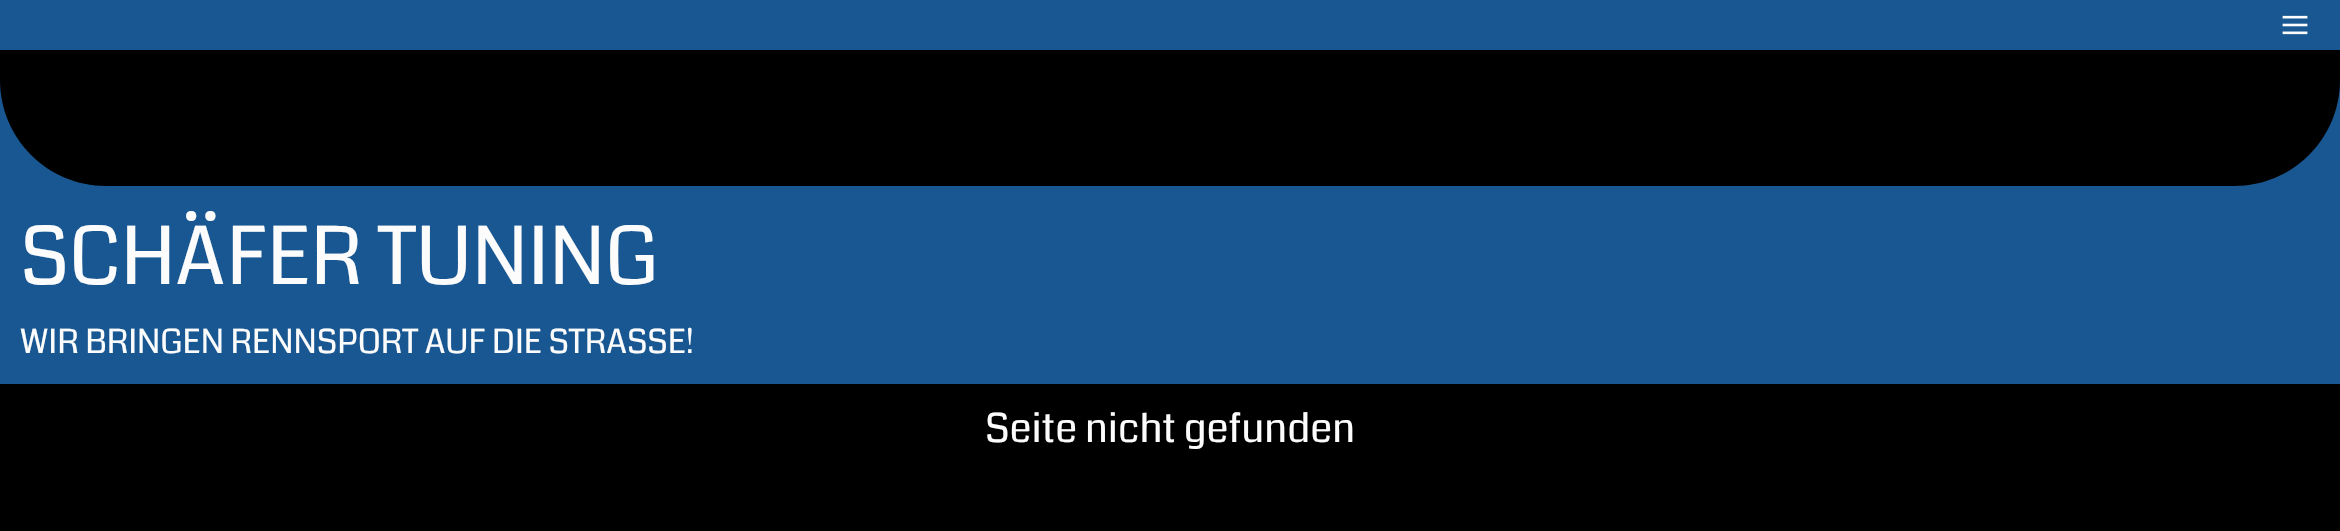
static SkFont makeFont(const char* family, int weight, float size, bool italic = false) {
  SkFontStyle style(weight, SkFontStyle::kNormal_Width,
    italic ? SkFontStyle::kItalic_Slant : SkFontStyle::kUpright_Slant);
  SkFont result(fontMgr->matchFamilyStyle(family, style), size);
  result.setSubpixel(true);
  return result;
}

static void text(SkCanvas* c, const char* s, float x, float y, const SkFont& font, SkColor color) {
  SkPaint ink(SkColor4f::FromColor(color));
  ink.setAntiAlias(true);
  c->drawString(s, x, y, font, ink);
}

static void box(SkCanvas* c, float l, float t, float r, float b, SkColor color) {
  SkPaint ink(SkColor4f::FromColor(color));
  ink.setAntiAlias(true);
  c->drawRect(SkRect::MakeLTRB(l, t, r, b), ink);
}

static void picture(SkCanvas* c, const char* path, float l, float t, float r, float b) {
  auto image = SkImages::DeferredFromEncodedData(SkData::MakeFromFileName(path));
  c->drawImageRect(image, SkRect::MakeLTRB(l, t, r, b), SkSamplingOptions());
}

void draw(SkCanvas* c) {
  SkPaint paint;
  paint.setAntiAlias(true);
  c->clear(0xff000000);
  box(c, 0, 0, 2340, 50, 0xff185791);
  picture(c, "img_01.png", 2282, 15, 2308, 35);
  box(c, 0, 80, 2340, 384, 0xff185791);
  paint.setColor(0xff000000);
  c->drawPath(SkPathBuilder().moveTo(0, 80).lineTo(2340, 80).cubicTo(2340, 138.5f, 2292.5f, 186, 2234, 186).lineTo(106, 186).cubicTo(47.5f, 186, 0, 138.5f, 0, 80).close().detach(), paint);
  paint.setColor(0x1a000000);
  c->drawPath(SkPathBuilder().moveTo(0, 80).lineTo(2340, 80).cubicTo(2340, 138.5f, 2292.5f, 186, 2234, 186).lineTo(106, 186).cubicTo(47.5f, 186, 0, 138.5f, 0, 80).close().detach(), paint);
  SkFont face1 = makeFont("Coda", 400, 80);
  text(c, "SCHÄFER TUNING", 20, 284, face1, 0xfffcfcfc);
  SkFont face2 = makeFont("Coda", 400, 33.3f);
  text(c, "WIR BRINGEN RENNSPORT AUF DIE STRASSE!", 20, 353, face2, 0xfffcfcfc);
  SkFont face3 = makeFont("Coda", 400, 40);
  text(c, "Seite nicht gefunden", 985, 442, face3, 0xfffcfcfc);
}
